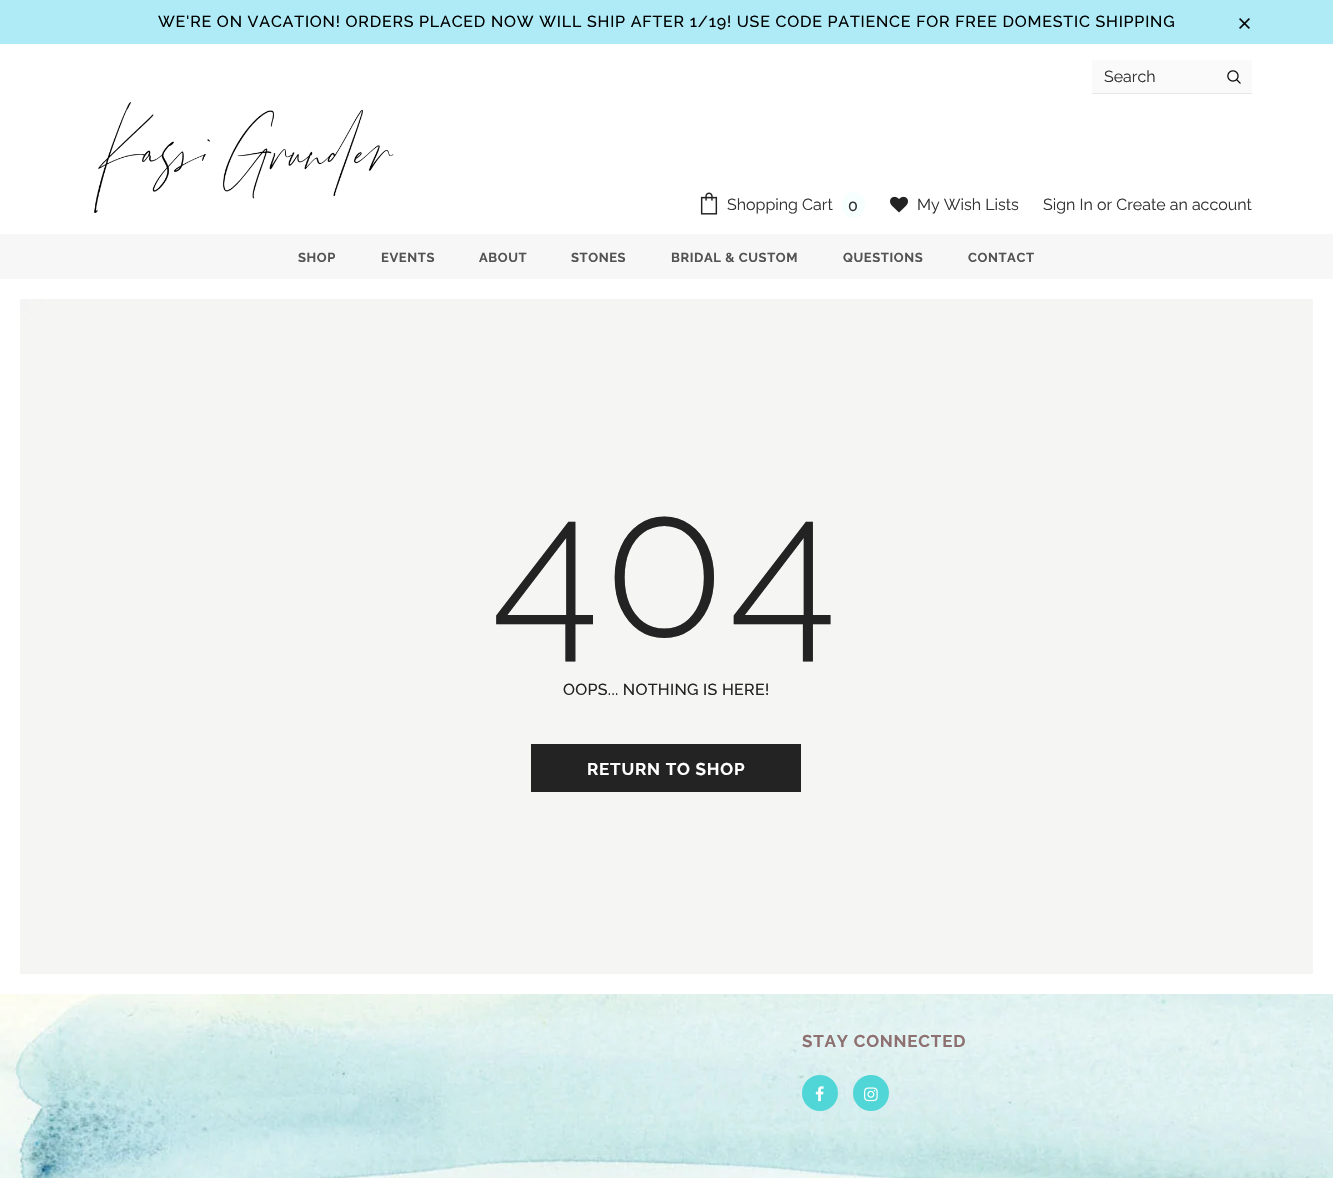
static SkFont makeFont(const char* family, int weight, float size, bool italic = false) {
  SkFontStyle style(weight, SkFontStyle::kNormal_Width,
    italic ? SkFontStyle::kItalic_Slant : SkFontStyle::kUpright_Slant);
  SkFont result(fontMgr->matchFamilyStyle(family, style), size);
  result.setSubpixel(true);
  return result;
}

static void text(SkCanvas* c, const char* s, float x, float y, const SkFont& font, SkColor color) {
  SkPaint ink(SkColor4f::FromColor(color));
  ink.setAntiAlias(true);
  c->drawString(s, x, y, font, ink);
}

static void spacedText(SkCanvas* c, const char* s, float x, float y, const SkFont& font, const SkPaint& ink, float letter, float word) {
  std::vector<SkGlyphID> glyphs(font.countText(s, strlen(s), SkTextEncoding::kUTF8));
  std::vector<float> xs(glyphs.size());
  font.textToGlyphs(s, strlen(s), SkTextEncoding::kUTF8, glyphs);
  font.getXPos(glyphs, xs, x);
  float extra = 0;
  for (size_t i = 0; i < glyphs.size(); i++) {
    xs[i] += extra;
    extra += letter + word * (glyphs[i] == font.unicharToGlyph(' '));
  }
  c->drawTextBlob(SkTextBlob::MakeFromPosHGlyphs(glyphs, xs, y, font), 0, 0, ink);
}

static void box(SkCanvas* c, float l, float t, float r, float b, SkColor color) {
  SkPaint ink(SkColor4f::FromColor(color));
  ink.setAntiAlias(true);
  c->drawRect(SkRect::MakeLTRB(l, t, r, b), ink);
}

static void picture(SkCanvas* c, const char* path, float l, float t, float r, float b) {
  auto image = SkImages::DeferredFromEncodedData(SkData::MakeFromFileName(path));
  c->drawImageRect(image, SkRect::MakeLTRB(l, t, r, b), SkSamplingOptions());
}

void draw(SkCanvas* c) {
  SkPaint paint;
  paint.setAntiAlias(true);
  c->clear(0xffffffff);
  box(c, 0, 0, 1333, 44, 0xffaeebf7);
  SkFont face1 = makeFont("Raleway", 500, 16);
  paint.setColor(0xff000000);
  spacedText(c, "WE'RE ON VACATION! ORDERS PLACED NOW WILL SHIP AFTER 1/19! USE CODE PATIENCE FOR FREE DOMESTIC SHIPPING", 158, 27, face1, paint, 0.8f, 0);
  picture(c, "img_01.png", 1239, 18, 1250, 29);
  box(c, 1092, 60, 1252, 93, 0xfffafafa);
  box(c, 1092, 93, 1252, 94, 0xffe7e7e7);
  SkFont face2 = makeFont("Raleway", 400, 16);
  text(c, "Search", 1104, 82, face2, 0xff323232);
  picture(c, "img_02.png", 1227, 70, 1241, 84);
  picture(c, "img_03.png", 94, 102, 394, 213);
  picture(c, "img_04.png", 700, 192, 718, 215);
  text(c, "Shopping Cart", 727, 210, face2, 0xff323232);
  paint.setColor(0xfff6fffe);
  c->drawOval(SkRect::MakeLTRB(842, 192, 865, 218), paint);
  text(c, "0", 848, 211, face1, 0xff323232);
  picture(c, "img_05.png", 890, 196, 908, 213);
  text(c, "My Wish Lists", 917, 210, face2, 0xff323232);
  text(c, "Sign In", 1043, 210, face2, 0xff323232);
  text(c, "or Create an account", 1097, 210, face2, 0xff323232);
  box(c, 0, 234, 1333, 279, 0xfff7f7f7);
  SkFont face3 = makeFont("Raleway", 700, 13);
  paint.setColor(0xff535353);
  spacedText(c, "SHOP", 298, 262, face3, paint, 0.6f, 0);
  spacedText(c, "EVENTS", 381, 262, face3, paint, 0.6f, 0);
  spacedText(c, "ABOUT", 479, 262, face3, paint, 0.6f, 0);
  spacedText(c, "STONES", 571, 262, face3, paint, 0.6f, 0);
  spacedText(c, "BRIDAL & CUSTOM", 671, 262, face3, paint, 0.6f, 0);
  spacedText(c, "QUESTIONS", 843, 262, face3, paint, 0.6f, 0);
  spacedText(c, "CONTACT", 968, 262, face3, paint, 0.6f, 0);
  picture(c, "img_06.png", 20, 299, 1313, 974);
  SkFont face4 = makeFont("Raleway", 300, 200);
  paint.setColor(0xff232323);
  spacedText(c, "404", 492, 636, face4, paint, 4, 0);
  spacedText(c, "OOPS... NOTHING IS HERE!", 563, 695, face1, paint, 0.3f, 0);
  box(c, 531, 744, 801, 792, 0xff232323);
  SkFont face5 = makeFont("Raleway", 700, 17);
  paint.setColor(0xffffffff);
  spacedText(c, "RETURN TO SHOP", 587, 775, face5, paint, 0.8f, 0);
  picture(c, "img_07.png", 0, 994, 1333, 1178);
  paint.setColor(0xff8e7070);
  spacedText(c, "STAY CONNECTED", 802, 1047, face5, paint, 0.8f, 0);
  paint.setColor(0xff50d6d6);
  c->drawCircle(820, 1093, 18, paint);
  picture(c, "img_08.png", 815, 1086, 824, 1102);
  c->drawCircle(871, 1093, 18, paint);
  picture(c, "img_09.png", 864, 1087, 878, 1102);
}
